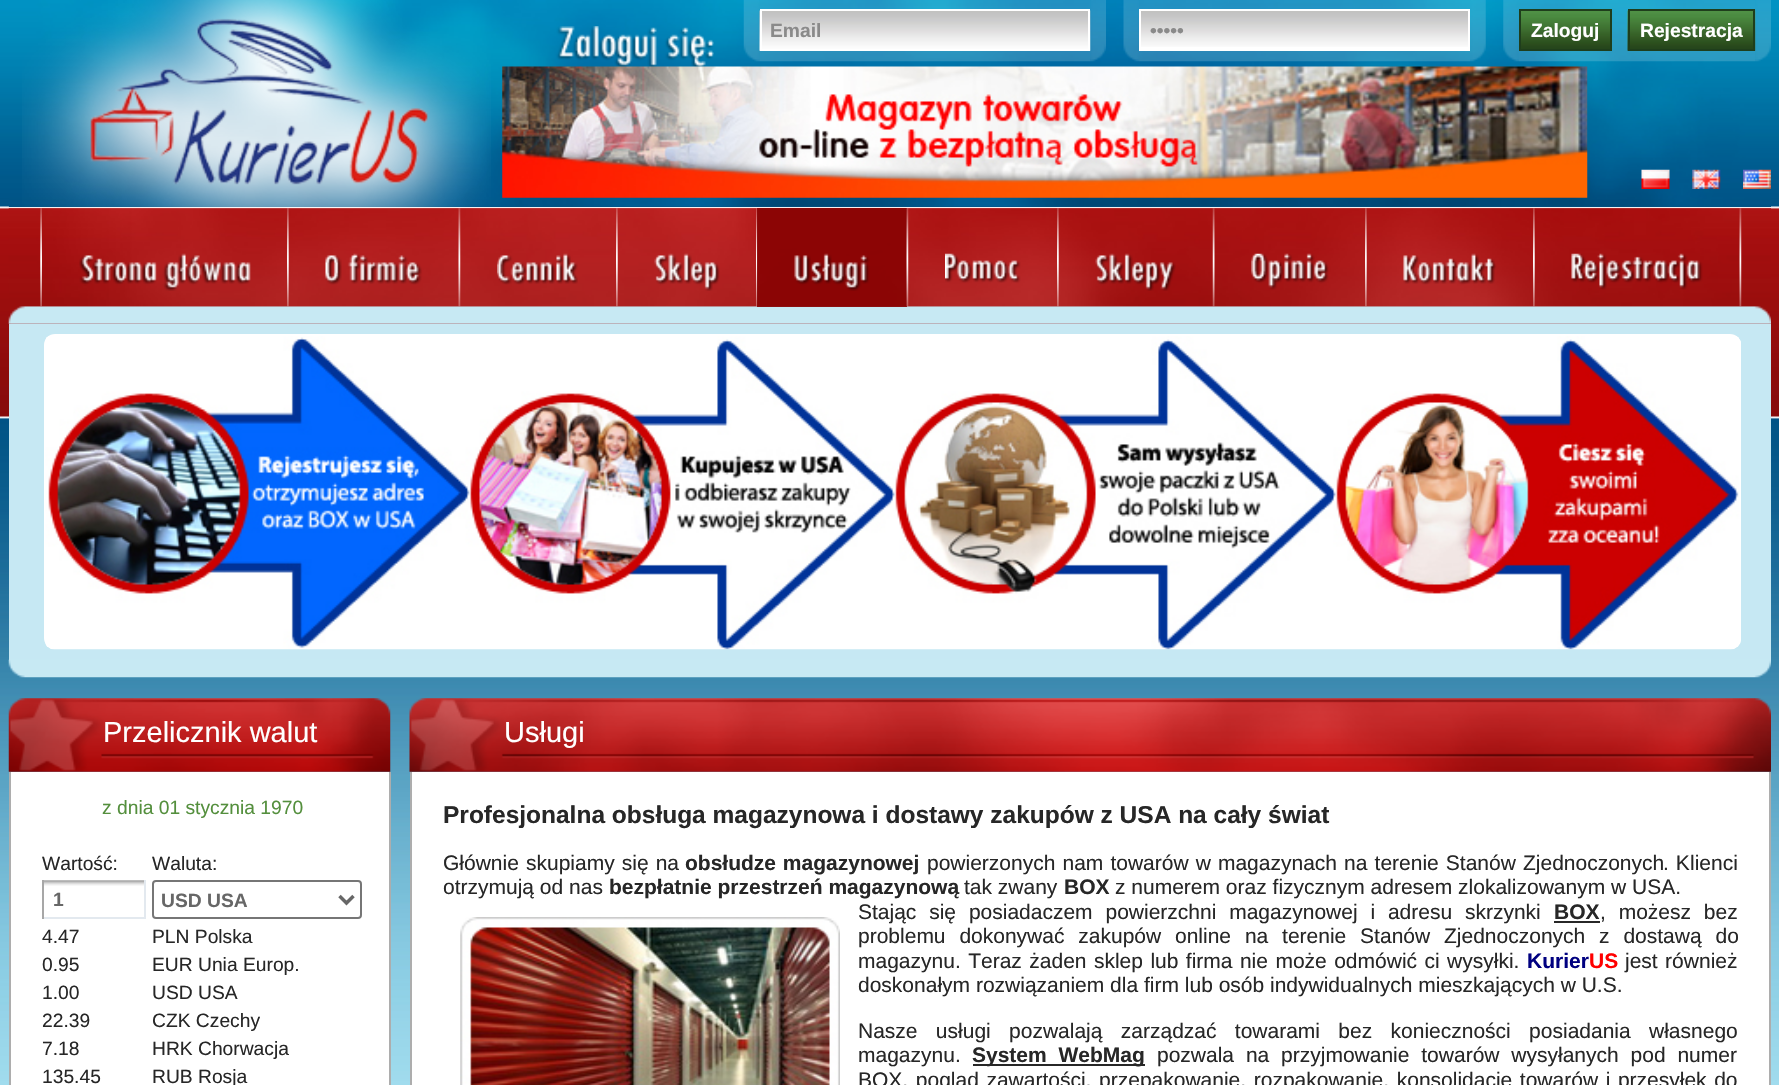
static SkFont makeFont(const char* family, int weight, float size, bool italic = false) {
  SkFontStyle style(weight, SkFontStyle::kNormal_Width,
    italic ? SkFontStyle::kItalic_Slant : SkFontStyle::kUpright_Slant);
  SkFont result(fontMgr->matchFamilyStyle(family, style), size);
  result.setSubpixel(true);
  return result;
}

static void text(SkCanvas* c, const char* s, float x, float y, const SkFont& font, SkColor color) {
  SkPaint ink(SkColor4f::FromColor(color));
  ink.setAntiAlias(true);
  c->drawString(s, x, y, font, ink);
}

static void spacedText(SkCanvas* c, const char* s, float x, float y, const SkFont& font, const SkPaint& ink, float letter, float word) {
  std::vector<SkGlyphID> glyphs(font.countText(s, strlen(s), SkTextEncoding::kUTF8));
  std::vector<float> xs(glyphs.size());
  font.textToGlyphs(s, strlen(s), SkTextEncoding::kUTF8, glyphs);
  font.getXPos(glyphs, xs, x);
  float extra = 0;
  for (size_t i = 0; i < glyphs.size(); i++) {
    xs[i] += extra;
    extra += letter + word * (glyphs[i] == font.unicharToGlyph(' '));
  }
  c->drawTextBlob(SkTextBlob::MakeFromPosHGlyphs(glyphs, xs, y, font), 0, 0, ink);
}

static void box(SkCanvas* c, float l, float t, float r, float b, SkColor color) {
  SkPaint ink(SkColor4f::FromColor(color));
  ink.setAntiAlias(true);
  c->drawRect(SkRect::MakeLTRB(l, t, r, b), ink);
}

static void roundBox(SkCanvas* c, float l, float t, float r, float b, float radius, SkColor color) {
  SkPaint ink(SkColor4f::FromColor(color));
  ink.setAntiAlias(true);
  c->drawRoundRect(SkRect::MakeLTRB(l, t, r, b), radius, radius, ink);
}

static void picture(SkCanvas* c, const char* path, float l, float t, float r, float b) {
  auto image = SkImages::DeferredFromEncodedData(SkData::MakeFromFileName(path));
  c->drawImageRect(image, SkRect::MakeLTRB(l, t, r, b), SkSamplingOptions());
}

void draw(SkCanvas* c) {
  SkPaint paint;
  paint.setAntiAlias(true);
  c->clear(0xffffffff);
  picture(c, "img_01.png", 0, 0, 1779, 1085);
  box(c, 9, 206, 1771, 207, 0xff005386);
  picture(c, "img_02.png", 8, 0, 1771, 207);
  picture(c, "img_03.png", 22, 0, 491, 209);
  picture(c, "img_04.png", 556, 26, 714, 67);
  picture(c, "img_05.png", 743, 0, 760, 62);
  picture(c, "img_06.png", 759, 0, 1091, 62);
  picture(c, "img_07.png", 759, 10, 1091, 51);
  paint.setStyle(SkPaint::kStroke_Style);
  paint.setStrokeWidth(2);
  paint.setColor(0xffffffff);
  c->drawRect(SkRect::MakeLTRB(761, 10, 1089, 50), paint);
  SkFont face1 = makeFont("Liberation Sans", 700, 19.25f);
  text(c, "Email", 770, 37, face1, 0xff8a8a8a);
  picture(c, "img_08.png", 1090, 0, 1106, 62);
  picture(c, "img_09.png", 1123, 0, 1140, 62);
  picture(c, "img_10.png", 1139, 0, 1470, 62);
  box(c, 1141, 47, 1468, 49, 0xffffffff);
  picture(c, "img_11.png", 1141, 11, 1468, 47);
  c->drawRect(SkRect::MakeLTRB(1140, 10, 1469, 50), paint);
  text(c, "•••••", 1150, 37, face1, 0xff8a8a8a);
  picture(c, "img_12.png", 1470, 0, 1486, 62);
  picture(c, "img_13.png", 1503, 0, 1519, 62);
  picture(c, "img_14.png", 1519, 0, 1756, 62);
  picture(c, "img_15.png", 1521, 11, 1610, 49);
  paint.setColor(0xff1f3e1c);
  c->drawRect(SkRect::MakeLTRB(1520, 10, 1611, 50), paint);
  text(c, "Zaloguj", 1531, 37, face1, 0xffffffff);
  picture(c, "img_16.png", 1627, 10, 1756, 51);
  c->drawRect(SkRect::MakeLTRB(1629, 10, 1754, 50), paint);
  text(c, "Rejestracja", 1640, 37, face1, 0xffffffff);
  picture(c, "img_17.png", 1755, 0, 1771, 62);
  picture(c, "img_18.png", 502, 66, 1588, 198);
  picture(c, "img_19.png", 1641, 169, 1670, 189);
  picture(c, "img_20.png", 1692, 169, 1721, 189);
  picture(c, "img_21.png", 1743, 169, 1771, 189);
  picture(c, "img_44.png", 8, 306, 1771, 324);
  picture(c, "img_22.png", 8, 208, 1771, 307);
  picture(c, "img_23.png", 40, 208, 42, 307);
  picture(c, "img_24.png", 287, 208, 289, 307);
  picture(c, "img_25.png", 458, 208, 461, 307);
  picture(c, "img_26.png", 616, 208, 618, 307);
  picture(c, "img_27.png", 756, 208, 758, 307);
  picture(c, "img_28.png", 79, 253, 251, 291);
  picture(c, "img_29.png", 325, 253, 422, 285);
  picture(c, "img_30.png", 497, 253, 578, 285);
  picture(c, "img_31.png", 654, 253, 720, 291);
  box(c, 757, 208, 907, 307, 0xe6870202);
  picture(c, "img_32.png", 794, 253, 870, 291);
  picture(c, "img_33.png", 906, 208, 909, 307);
  picture(c, "img_34.png", 945, 253, 1021, 283);
  picture(c, "img_35.png", 1057, 208, 1059, 307);
  picture(c, "img_36.png", 1095, 253, 1176, 291);
  picture(c, "img_37.png", 1212, 208, 1215, 307);
  picture(c, "img_38.png", 1251, 253, 1329, 290);
  picture(c, "img_39.png", 1365, 208, 1367, 307);
  picture(c, "img_40.png", 1403, 253, 1497, 285);
  picture(c, "img_41.png", 1533, 208, 1535, 307);
  picture(c, "img_42.png", 1571, 253, 1703, 290);
  picture(c, "img_43.png", 1739, 208, 1742, 307);
  box(c, 9, 324, 1771, 660, 0xffc6e8f3);
  roundBox(c, 44, 334, 1741, 649, 11, 0xffffffff);
  picture(c, "img_45.png", 45, 336, 1741, 650);
  picture(c, "img_46.png", 8, 659, 1771, 678);
  picture(c, "img_47.png", 8, 698, 391, 772);
  SkFont face2 = makeFont("Liberation Sans", 400, 29);
  text(c, "Przelicznik walut", 103, 742, face2, 0xffffffff);
  box(c, 11, 772, 389, 1085, 0xffffffff);
  box(c, 389, 772, 391, 1085, 0xffadadad);
  box(c, 9, 772, 11, 1085, 0xffadadad);
  SkFont face3 = makeFont("Liberation Sans", 400, 19.25f);
  text(c, "z dnia 01 stycznia 1970", 102, 814, face3, 0xff548f3d);
  text(c, "Wartość:", 42, 870, face3, 0xff272727);
  text(c, "Waluta:", 152, 870, face3, 0xff272727);
  picture(c, "img_48.png", 44, 880, 144, 886);
  box(c, 144, 880, 146, 919, 0xffe3e9ef);
  box(c, 42, 917, 145, 919, 0xffe3e9ef);
  box(c, 42, 880, 44, 919, 0xffa7a7a7);
  text(c, "1", 53, 906, face1, 0xff676767);
  paint.setColor(0xff767676);
  c->drawRoundRect(SkRect::MakeLTRB(153, 881, 361, 918), 3, 3, paint);
  paint.setStrokeWidth(3.5f);
  paint.setColor(0xff676767);
  c->drawPath(SkPathBuilder().moveTo(339.5f, 896).lineTo(346.5f, 903).lineTo(353.5f, 896).detach(), paint);
  text(c, "USD USA", 161, 907, face1, 0xff676767);
  text(c, "4.47", 42, 943, face3, 0xff272727);
  text(c, "PLN Polska", 152, 943, face3, 0xff272727);
  text(c, "0.95", 42, 971, face3, 0xff272727);
  text(c, "EUR Unia Europ.", 152, 971, face3, 0xff272727);
  text(c, "1.00", 42, 999, face3, 0xff272727);
  text(c, "USD USA", 152, 999, face3, 0xff272727);
  text(c, "22.39", 42, 1027, face3, 0xff272727);
  text(c, "CZK Czechy", 152, 1027, face3, 0xff272727);
  text(c, "7.18", 42, 1055, face3, 0xff272727);
  text(c, "HRK Chorwacja", 152, 1055, face3, 0xff272727);
  text(c, "135.45", 42, 1083, face3, 0xff272727);
  text(c, "RUB Rosja", 152, 1083, face3, 0xff272727);
  picture(c, "img_49.png", 409, 698, 1771, 772);
  text(c, "Usługi", 504, 742, face2, 0xffffffff);
  box(c, 412, 772, 1769, 1085, 0xffffffff);
  box(c, 1769, 772, 1771, 1085, 0xffadadad);
  box(c, 410, 772, 412, 1085, 0xffadadad);
  SkFont face4 = makeFont("Liberation Sans", 700, 24.5f);
  text(c, "Profesjonalna obsługa magazynowa i dostawy zakupów z USA na cały świat", 443, 823, face4, 0xff272727);
  SkFont face5 = makeFont("Liberation Sans", 400, 21);
  paint.setStyle(SkPaint::kFill_Style);
  paint.setColor(0xff272727);
  spacedText(c, "Głównie skupiamy się na", 443, 870, face5, paint, 0, 1.25f);
  SkFont face6 = makeFont("Liberation Sans", 700, 21);
  spacedText(c, "obsłudze magazynowej", 685, 870, face6, paint, 0, 1);
  spacedText(c, "powierzonych nam towarów w magazynach na terenie Stanów Zjednoczonych", 927, 870, face5, paint, 0, 1.25f);
  spacedText(c, ". K", 1663, 870, face5, paint, 0, 1);
  text(c, "lienci", 1690, 870, face5, 0xff272727);
  text(c, "otrzymują od nas", 443, 894, face5, 0xff272727);
  text(c, "bezpłatnie przestrzeń magazynową", 609, 894, face6, 0xff272727);
  text(c, "tak zwany", 964, 894, face5, 0xff272727);
  text(c, "BOX", 1064, 894, face6, 0xff272727);
  text(c, "z numerem oraz fizycznym adresem zlokalizowanym w USA.", 1115, 894, face5, 0xff272727);
  picture(c, "img_50.png", 460, 917, 840, 1085);
  spacedText(c, "Stając się posiadaczem powierzchni magazynowej i adresu skrzynki", 858, 919, face5, paint, 0, 7);
  text(c, "BOX", 1554, 919, face6, 0xff272727);
  box(c, 1554, 921, 1600, 923, 0xff272727);
  spacedText(c, ", możesz bez", 1600, 919, face5, paint, 0, 7);
  spacedText(c, "problemu dokonywać zakupów online na terenie Stanów Zjednoczonych z dostawą do", 858, 943, face5, paint, 0, 8);
  spacedText(c, "magazynu. Teraz żaden sklep lub firma nie może odmówić ci wysyłki.", 858, 968, face5, paint, 0, 1.6f);
  text(c, "Kurier", 1527, 968, face6, 0xff000080);
  text(c, "US", 1589, 968, face6, 0xffff0000);
  spacedText(c, "jest również", 1625, 968, face5, paint, 0, 1.6f);
  text(c, "doskonałym rozwiązaniem dla firm lub osób indywidualnych mieszkających w U.S.", 858, 992, face5, 0xff272727);
  spacedText(c, "Nasze usługi pozwalają zarządzać towarami bez konieczności posiadania własnego", 858, 1038, face5, paint, 0, 12.5f);
  text(c, "magazynu.", 858, 1062, face5, 0xff272727);
  box(c, 973, 1064, 1145, 1066, 0xff272727);
  spacedText(c, "System WebMag", 972, 1062, face6, paint, 0, 6);
  spacedText(c, "pozwala na przyjmowanie towarów wysyłanych pod numer", 1157, 1062, face5, paint, 0, 6);
  spacedText(c, "BOX, pogląd zawartości, przepakowanie, rozpakowanie, konsolidację towarów i przesyłek do", 858, 1087, face5, paint, 0, 1.75f);
}
